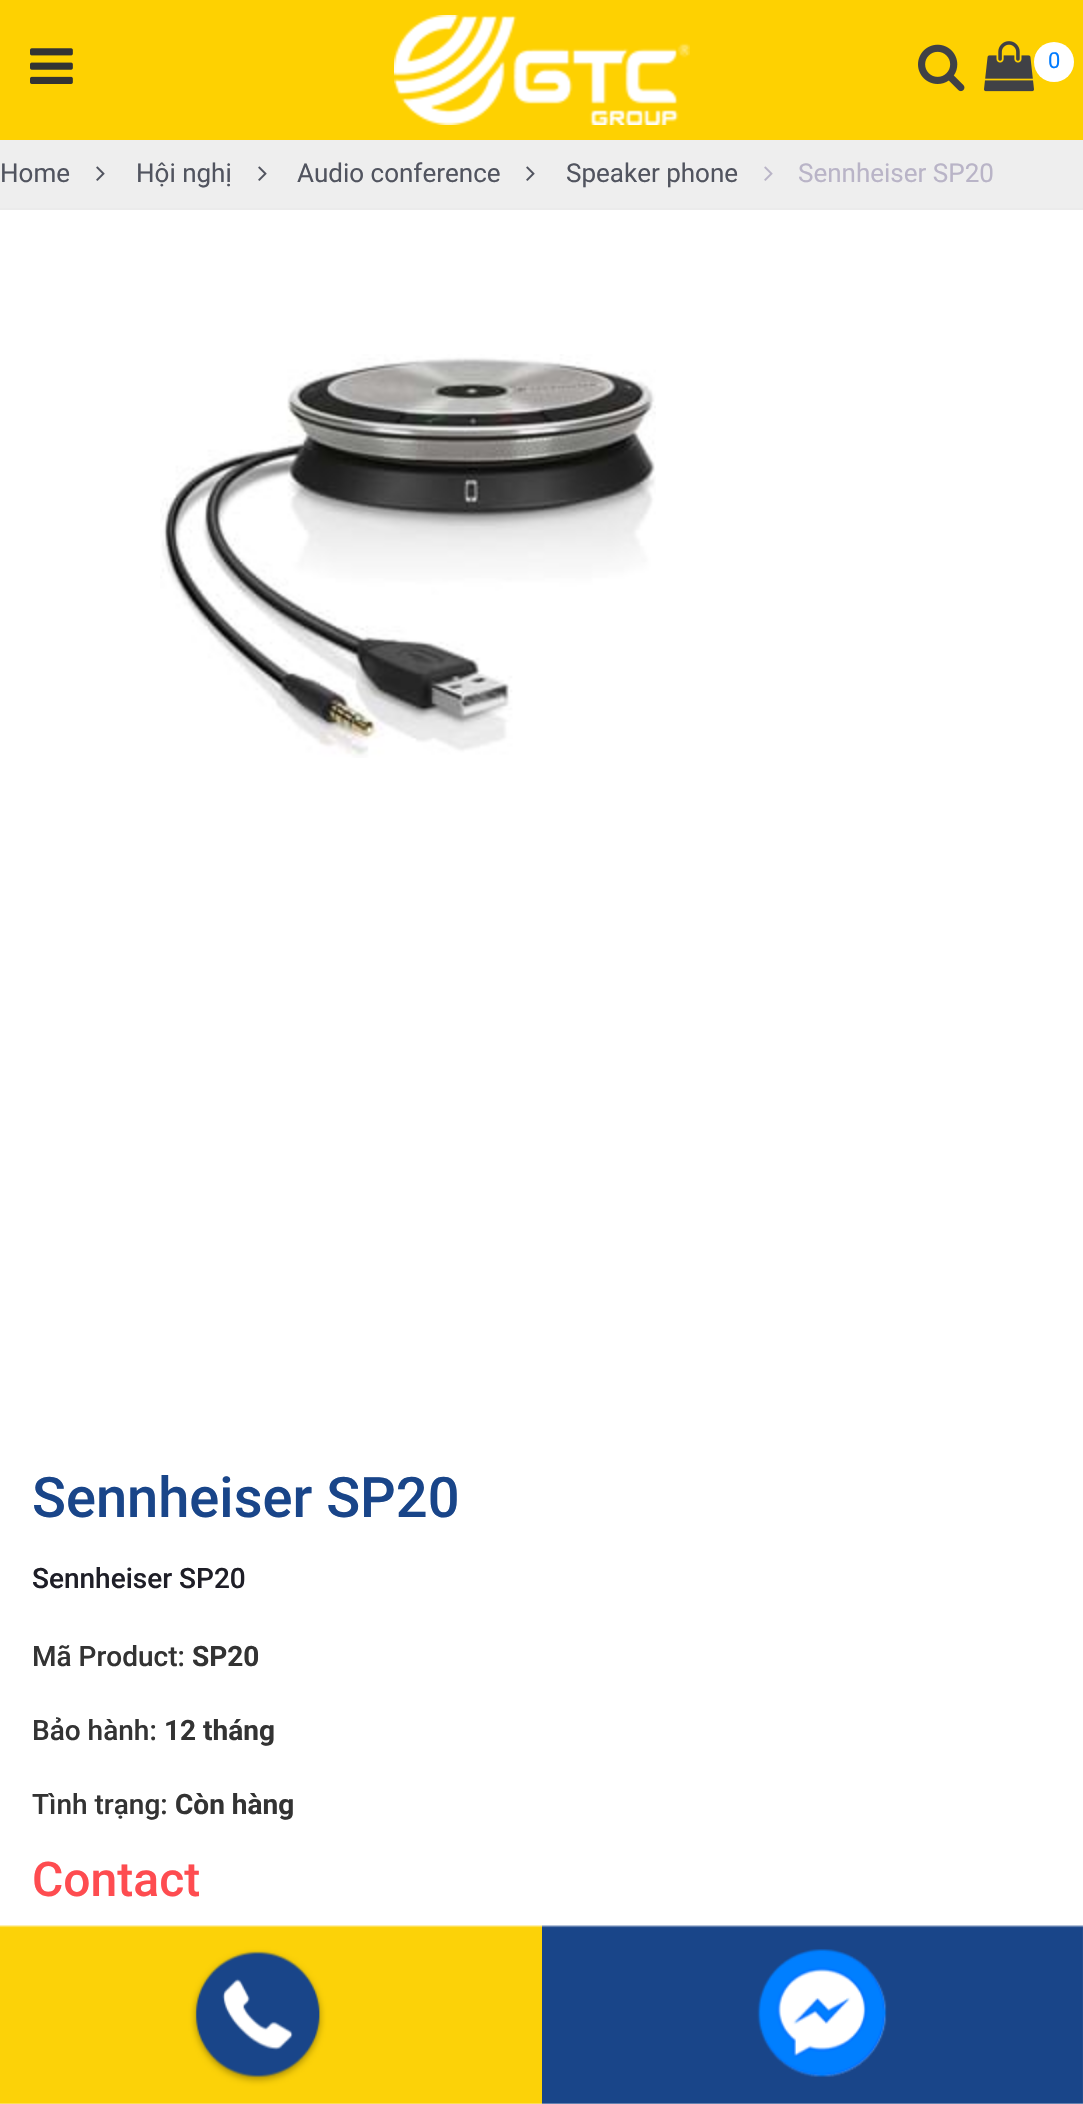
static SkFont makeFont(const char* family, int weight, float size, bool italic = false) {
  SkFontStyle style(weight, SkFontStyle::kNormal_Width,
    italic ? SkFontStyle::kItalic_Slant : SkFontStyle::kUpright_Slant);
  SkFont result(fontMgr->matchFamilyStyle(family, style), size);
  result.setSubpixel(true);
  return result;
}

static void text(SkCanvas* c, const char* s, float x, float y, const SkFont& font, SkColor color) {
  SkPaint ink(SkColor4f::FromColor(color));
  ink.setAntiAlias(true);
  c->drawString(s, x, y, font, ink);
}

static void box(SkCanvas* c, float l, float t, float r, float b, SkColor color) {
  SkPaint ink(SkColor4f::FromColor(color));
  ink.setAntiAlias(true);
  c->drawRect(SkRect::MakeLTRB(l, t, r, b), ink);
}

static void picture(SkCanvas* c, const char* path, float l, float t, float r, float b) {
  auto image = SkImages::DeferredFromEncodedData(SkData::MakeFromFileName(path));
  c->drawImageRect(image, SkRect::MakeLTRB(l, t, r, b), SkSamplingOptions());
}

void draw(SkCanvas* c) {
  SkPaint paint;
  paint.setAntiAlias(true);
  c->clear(0xffeeeeee);
  box(c, 0, 0, 1083, 140, 0xfffed101);
  picture(c, "img_01.png", 30, 48, 73, 84);
  picture(c, "img_02.png", 394, 15, 690, 125);
  picture(c, "img_03.png", 918, 44, 965, 92);
  picture(c, "img_04.png", 984, 41, 1034, 92);
  paint.setColor(0xffffffff);
  c->drawCircle(1054, 62, 20, paint);
  SkFont face1 = makeFont("Roboto", 400, 22);
  text(c, "0", 1048, 68, face1, 0xff007bff);
  box(c, 0, 208, 1083, 210, 0xffebebeb);
  SkFont face2 = makeFont("Roboto", 400, 26);
  text(c, "Home", 0, 182, face2, 0xff51545f);
  picture(c, "img_05.png", 96, 166, 105, 181);
  text(c, "Hội nghị", 136, 182, face2, 0xff51545f);
  picture(c, "img_05.png", 258, 166, 267, 181);
  text(c, "Audio conference", 297, 182, face2, 0xff51545f);
  picture(c, "img_05.png", 526, 166, 535, 181);
  text(c, "Speaker phone", 566, 182, face2, 0xff51545f);
  picture(c, "img_06.png", 764, 166, 773, 181);
  text(c, "Sennheiser SP20", 798, 182, face2, 0xffb9b4c7);
  box(c, 0, 210, 1083, 2104, 0xffffffff);
  picture(c, "img_07.png", 160, 354, 656, 758);
  SkFont face3 = makeFont("Roboto", 500, 56);
  text(c, "Sennheiser SP20", 32, 1517, face3, 0xff194589);
  SkFont face4 = makeFont("Roboto", 500, 28);
  text(c, "Sennheiser SP20", 32, 1588, face4, 0xff1e1e27);
  text(c, "Mã Product:", 32, 1666, face4, 0xff333333);
  SkFont face5 = makeFont("Roboto", 700, 28);
  text(c, "SP20", 192, 1666, face5, 0xff333333);
  text(c, "Bảo hành:", 32, 1740, face4, 0xff333333);
  text(c, "12 tháng", 164, 1740, face5, 0xff333333);
  text(c, "Tình trạng:", 32, 1814, face4, 0xff333333);
  text(c, "Còn hàng", 175, 1814, face5, 0xff333333);
  SkFont face6 = makeFont("Roboto", 500, 48);
  text(c, "Contact", 32, 1896, face6, 0xfffe4c50);
  picture(c, "img_08.png", 0, 1925, 542, 2104);
  picture(c, "img_09.png", 542, 1925, 1083, 2104);
}
